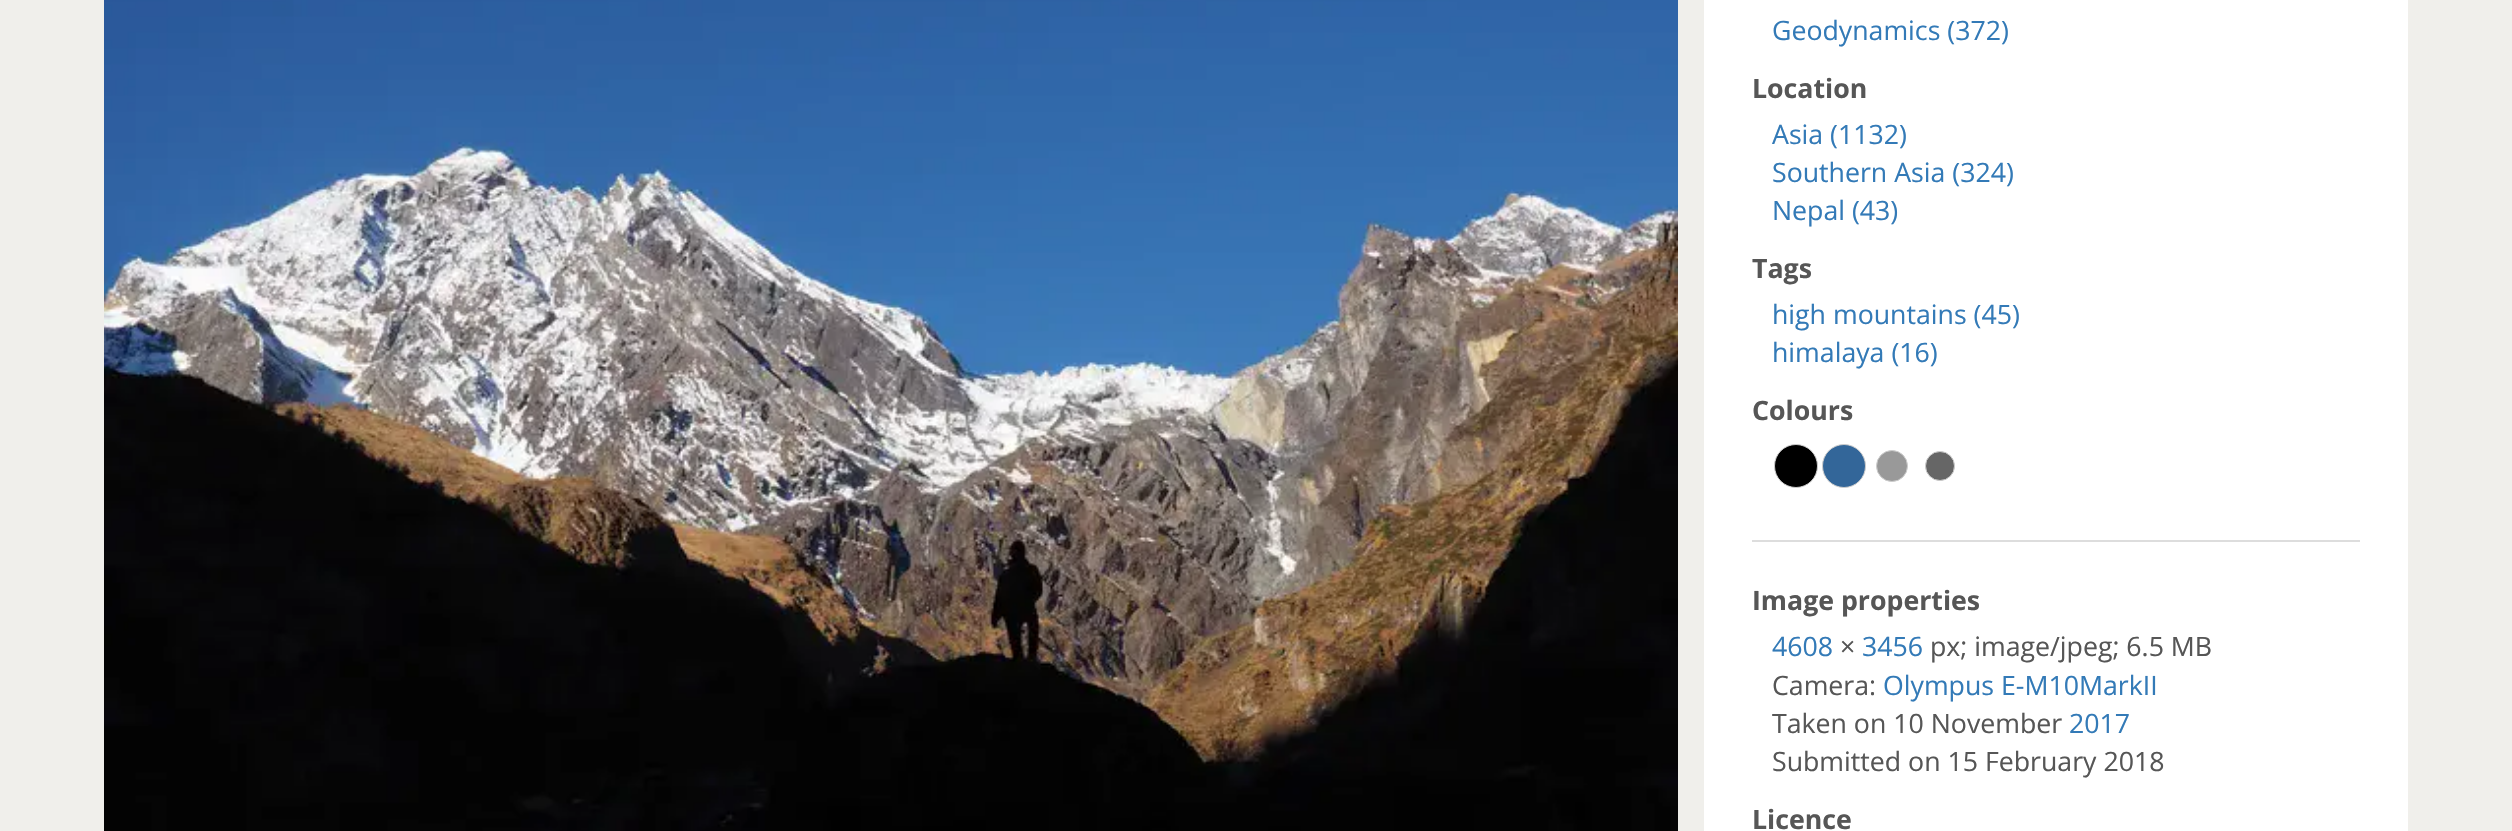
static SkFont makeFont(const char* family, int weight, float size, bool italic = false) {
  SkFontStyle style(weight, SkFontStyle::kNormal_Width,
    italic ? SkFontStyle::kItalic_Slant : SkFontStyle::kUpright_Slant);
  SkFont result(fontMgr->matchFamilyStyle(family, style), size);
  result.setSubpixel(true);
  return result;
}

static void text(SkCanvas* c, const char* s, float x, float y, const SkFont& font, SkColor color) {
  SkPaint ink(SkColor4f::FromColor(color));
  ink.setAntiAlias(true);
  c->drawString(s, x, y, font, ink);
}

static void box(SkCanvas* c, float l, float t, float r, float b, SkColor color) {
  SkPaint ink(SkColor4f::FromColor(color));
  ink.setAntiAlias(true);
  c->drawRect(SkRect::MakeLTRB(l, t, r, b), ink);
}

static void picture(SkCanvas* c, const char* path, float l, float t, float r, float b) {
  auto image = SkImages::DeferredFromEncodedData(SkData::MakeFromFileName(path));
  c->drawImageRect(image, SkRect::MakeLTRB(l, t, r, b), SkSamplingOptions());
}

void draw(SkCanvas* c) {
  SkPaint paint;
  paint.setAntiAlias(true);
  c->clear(0xfff0efeb);
  picture(c, "img_01.png", 104, 0, 1678, 831);
  box(c, 1704, 0, 2408, 831, 0xffffffff);
  SkFont face1 = makeFont("Open Sans", 400, 26.7f);
  text(c, "Geodynamics (372)", 1772, 40, face1, 0xff337ab7);
  SkFont face2 = makeFont("Open Sans", 700, 26.7f);
  text(c, "Location", 1752, 98, face2, 0xff565656);
  text(c, "Asia (1132)", 1772, 144, face1, 0xff337ab7);
  text(c, "Southern Asia (324)", 1772, 182, face1, 0xff337ab7);
  text(c, "Nepal (43)", 1772, 220, face1, 0xff337ab7);
  text(c, "Tags", 1752, 278, face2, 0xff565656);
  text(c, "high mountains (45)", 1772, 324, face1, 0xff337ab7);
  text(c, "himalaya (16)", 1772, 362, face1, 0xff337ab7);
  text(c, "Colours", 1752, 420, face2, 0xff565656);
  paint.setColor(0xff000000);
  c->drawCircle(1796, 466, 21.5f, paint);
  paint.setStyle(SkPaint::kStroke_Style);
  paint.setStrokeWidth(1);
  paint.setColor(0xffcccccc);
  c->drawCircle(1796, 466, 21.5f, paint);
  paint.setStyle(SkPaint::kFill_Style);
  paint.setColor(0xff336699);
  c->drawCircle(1844, 466, 21.5f, paint);
  paint.setStyle(SkPaint::kStroke_Style);
  paint.setColor(0xffcccccc);
  c->drawCircle(1844, 466, 21.5f, paint);
  paint.setStyle(SkPaint::kFill_Style);
  paint.setColor(0xff999999);
  c->drawCircle(1892, 466, 15.5f, paint);
  paint.setStyle(SkPaint::kStroke_Style);
  paint.setColor(0xffcccccc);
  c->drawCircle(1892, 466, 15.5f, paint);
  paint.setStyle(SkPaint::kFill_Style);
  paint.setColor(0xff666666);
  c->drawCircle(1940, 466, 14.5f, paint);
  paint.setStyle(SkPaint::kStroke_Style);
  paint.setColor(0xffcccccc);
  c->drawCircle(1940, 466, 14.5f, paint);
  box(c, 1752, 540, 2360, 542, 0xffdddddd);
  text(c, "Image properties", 1752, 610, face2, 0xff565656);
  text(c, "4608", 1772, 656, face1, 0xff337ab7);
  text(c, "×", 1840, 656, face1, 0xff565656);
  text(c, "3456", 1862, 656, face1, 0xff337ab7);
  text(c, "px; image/jpeg; 6.5 MB", 1930, 656, face1, 0xff565656);
  text(c, "Camera:", 1772, 695, face1, 0xff565656);
  text(c, "Olympus E-M10MarkII", 1883, 695, face1, 0xff337ab7);
  text(c, "Taken on 10 November", 1772, 733, face1, 0xff565656);
  text(c, "2017", 2069, 733, face1, 0xff337ab7);
  text(c, "Submitted on 15 February 2018", 1772, 771, face1, 0xff565656);
  text(c, "Licence", 1752, 829, face2, 0xff565656);
}
